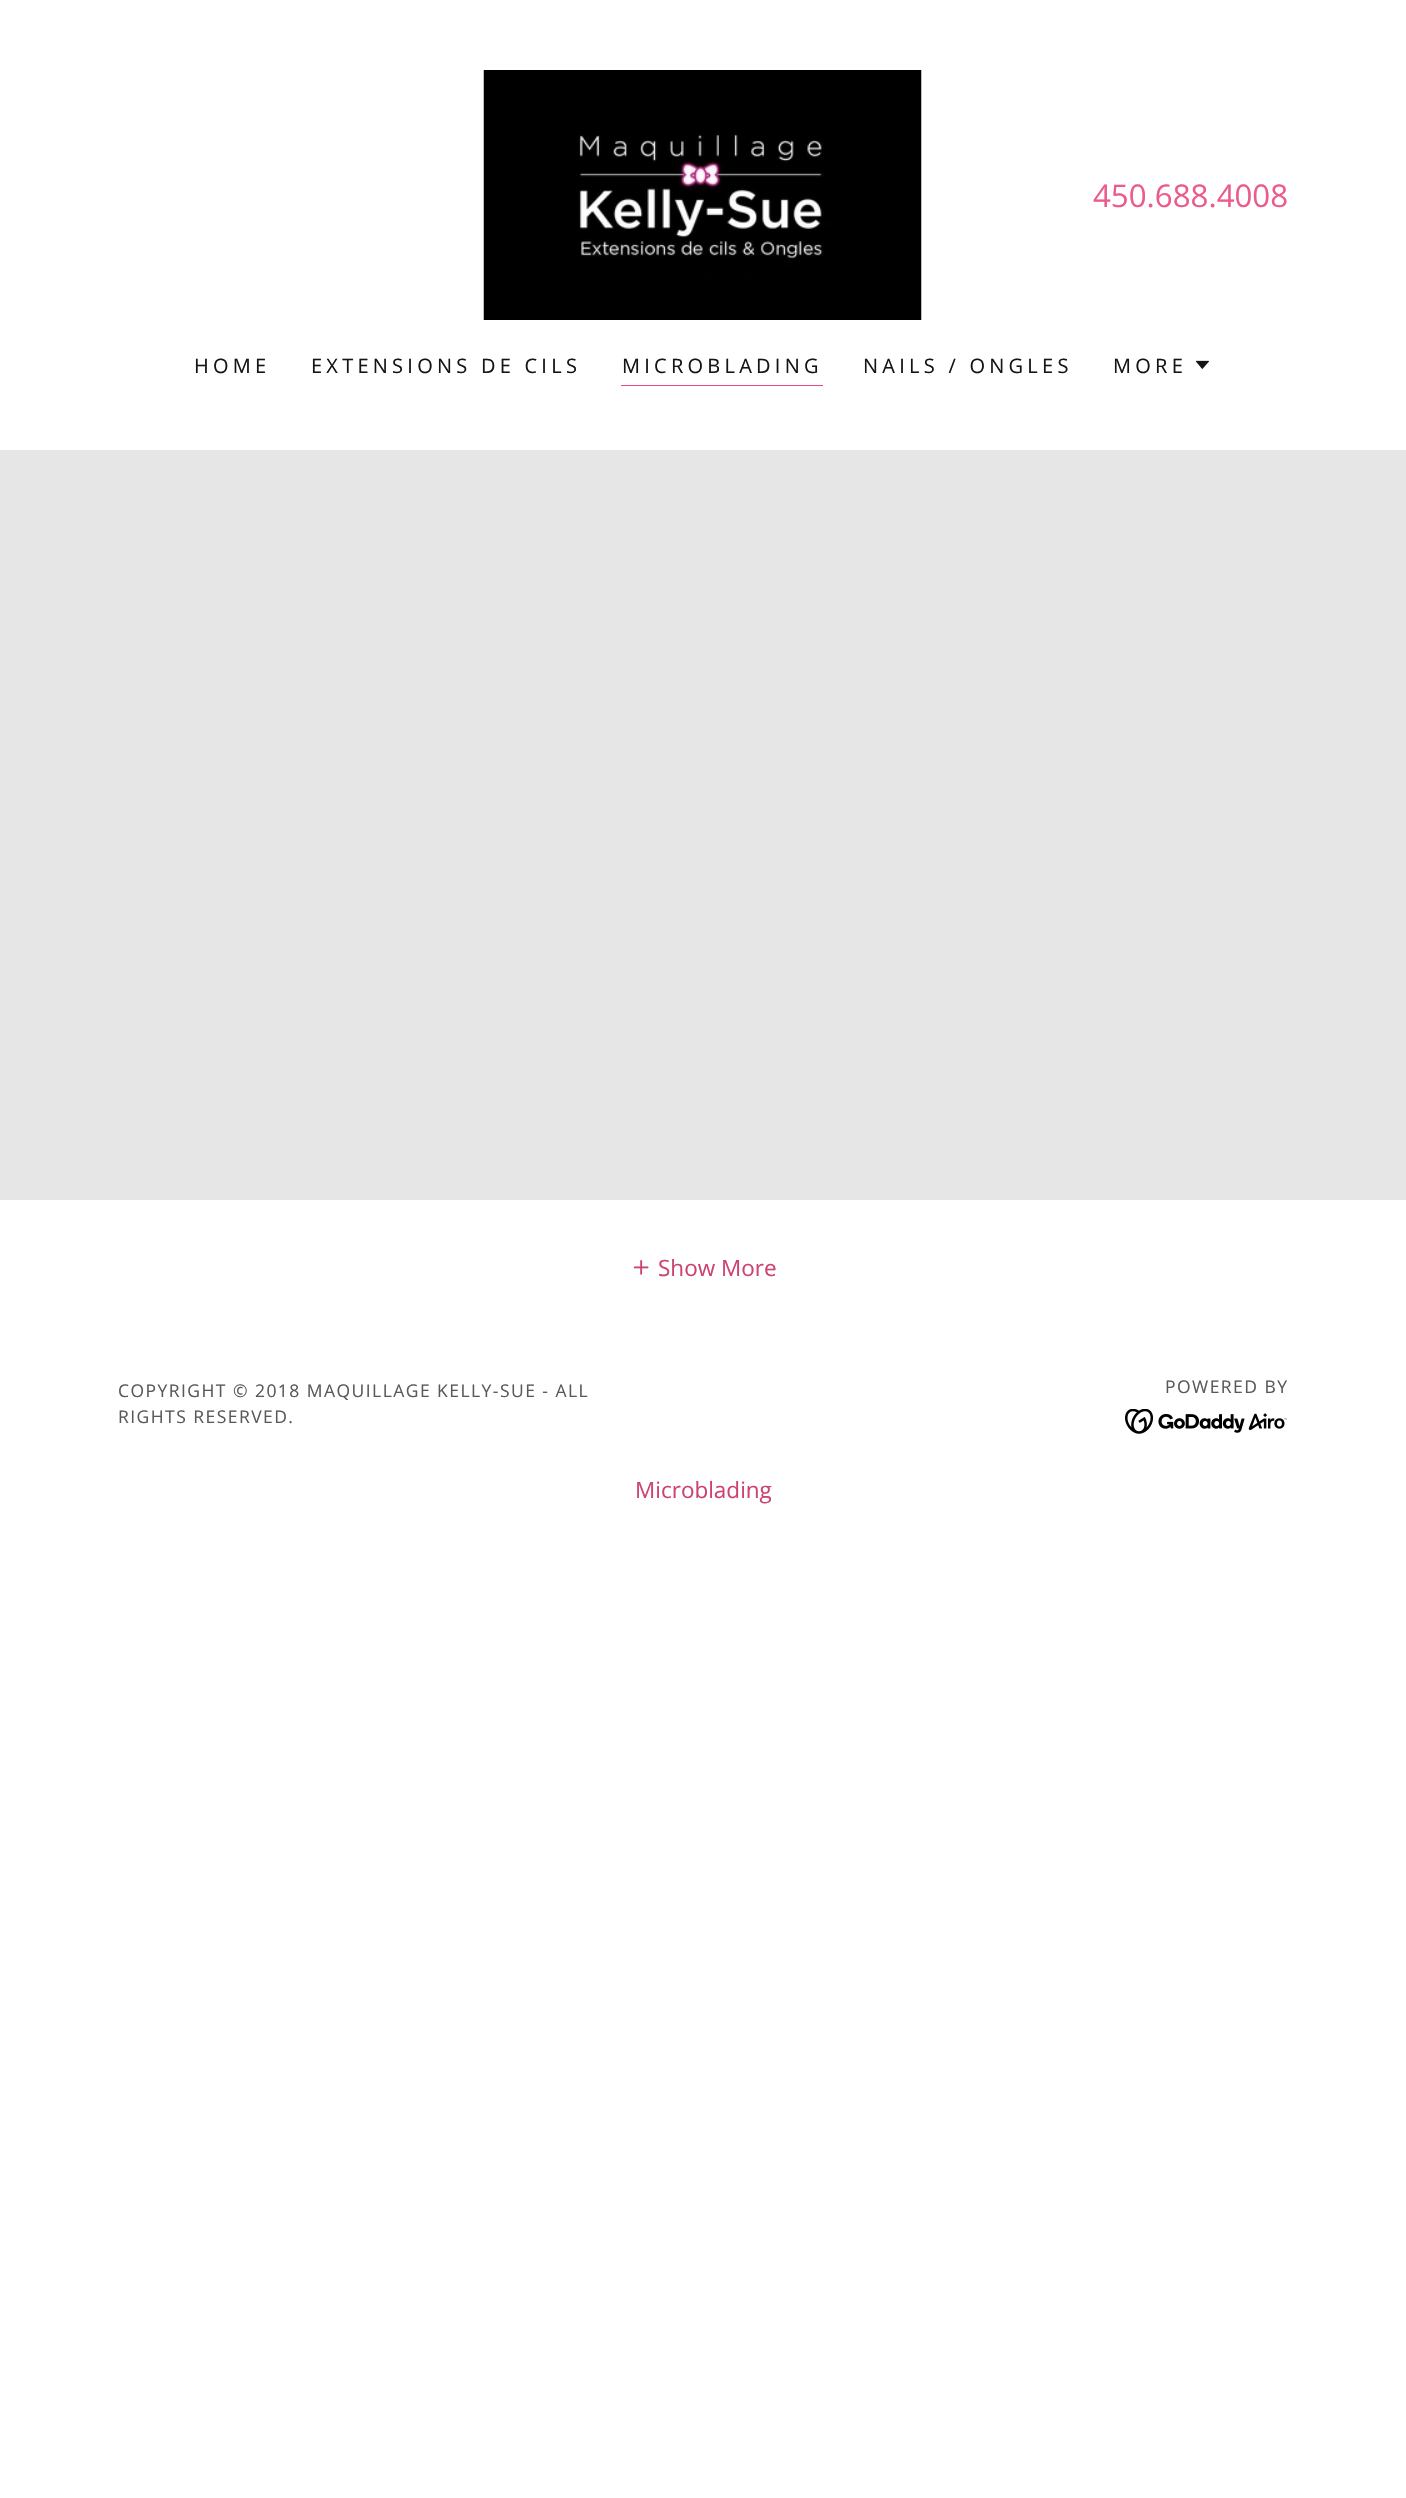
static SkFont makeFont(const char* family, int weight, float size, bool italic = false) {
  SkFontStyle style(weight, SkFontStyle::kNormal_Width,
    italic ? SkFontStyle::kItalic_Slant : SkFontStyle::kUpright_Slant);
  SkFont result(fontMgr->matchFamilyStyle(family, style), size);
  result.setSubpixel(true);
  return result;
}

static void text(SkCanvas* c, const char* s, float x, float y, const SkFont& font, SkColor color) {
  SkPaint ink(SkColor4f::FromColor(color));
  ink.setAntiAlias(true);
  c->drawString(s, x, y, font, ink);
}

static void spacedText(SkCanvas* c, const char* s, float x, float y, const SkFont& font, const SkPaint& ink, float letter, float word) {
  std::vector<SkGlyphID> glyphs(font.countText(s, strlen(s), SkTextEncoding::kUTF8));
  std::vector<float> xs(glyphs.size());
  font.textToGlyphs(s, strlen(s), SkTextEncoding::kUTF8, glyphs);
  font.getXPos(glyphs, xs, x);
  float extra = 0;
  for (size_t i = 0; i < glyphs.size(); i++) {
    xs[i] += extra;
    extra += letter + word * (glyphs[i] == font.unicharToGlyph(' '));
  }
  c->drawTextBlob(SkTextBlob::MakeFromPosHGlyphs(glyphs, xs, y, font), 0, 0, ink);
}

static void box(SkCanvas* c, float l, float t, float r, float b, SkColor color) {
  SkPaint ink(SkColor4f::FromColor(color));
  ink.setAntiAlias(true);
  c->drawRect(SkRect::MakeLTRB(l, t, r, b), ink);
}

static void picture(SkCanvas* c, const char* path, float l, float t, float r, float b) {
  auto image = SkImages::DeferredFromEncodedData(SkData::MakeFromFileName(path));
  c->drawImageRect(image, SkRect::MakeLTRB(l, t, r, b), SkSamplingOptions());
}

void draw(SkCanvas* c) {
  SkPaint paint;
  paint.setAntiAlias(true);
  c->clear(0xffffffff);
  picture(c, "img_01.png", 483, 70, 922, 320);
  SkFont face1 = makeFont("Open Sans", 400, 31.25f);
  text(c, "450.688.4008", 1093, 207, face1, 0xffeb5b8d);
  SkFont face2 = makeFont("Open Sans", 400, 20);
  paint.setColor(0xff151515);
  spacedText(c, "HOME", 194, 373, face2, paint, 4.25f, 0);
  spacedText(c, "EXTENSIONS DE CILS", 311, 373, face2, paint, 4.25f, 0);
  box(c, 621, 385, 823, 386, 0xfff14688);
  spacedText(c, "MICROBLADING", 622, 373, face2, paint, 4.25f, 0);
  spacedText(c, "NAILS / ONGLES", 863, 373, face2, paint, 4.25f, 0);
  spacedText(c, "MORE", 1113, 373, face2, paint, 4.25f, 0);
  picture(c, "img_02.png", 1195, 360, 1209, 369);
  box(c, 0, 450, 1406, 825, 0xffe6e6e6);
  box(c, 0, 825, 1406, 1200, 0xffe6e6e6);
  picture(c, "img_03.png", 633, 1260, 649, 1275);
  SkFont face3 = makeFont("Open Sans", 400, 22.5f);
  text(c, "Show More", 658, 1276, face3, 0xffcc4372);
  SkFont face4 = makeFont("Open Sans", 400, 17.5f);
  paint.setColor(0xff595959);
  spacedText(c, "COPYRIGHT © 2018 MAQUILLAGE KELLY-SUE - ALL", 118, 1397, face4, paint, 1.45f, 0);
  spacedText(c, "RIGHTS RESERVED.", 118, 1423, face4, paint, 1.45f, 0);
  spacedText(c, "POWERED BY", 1165, 1393, face4, paint, 1.45f, 0);
  picture(c, "img_04.png", 1125, 1409, 1287, 1434);
  text(c, "Microblading", 635, 1498, face3, 0xffcc4372);
}
